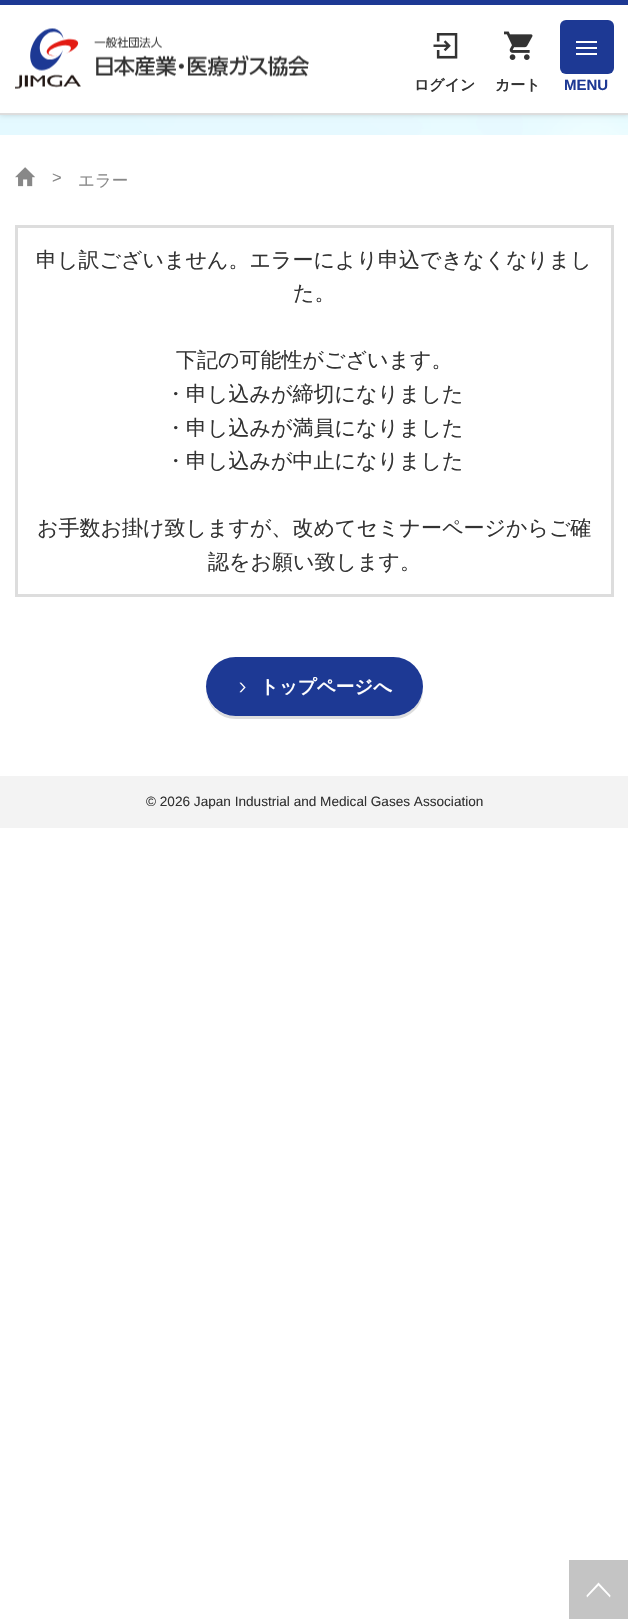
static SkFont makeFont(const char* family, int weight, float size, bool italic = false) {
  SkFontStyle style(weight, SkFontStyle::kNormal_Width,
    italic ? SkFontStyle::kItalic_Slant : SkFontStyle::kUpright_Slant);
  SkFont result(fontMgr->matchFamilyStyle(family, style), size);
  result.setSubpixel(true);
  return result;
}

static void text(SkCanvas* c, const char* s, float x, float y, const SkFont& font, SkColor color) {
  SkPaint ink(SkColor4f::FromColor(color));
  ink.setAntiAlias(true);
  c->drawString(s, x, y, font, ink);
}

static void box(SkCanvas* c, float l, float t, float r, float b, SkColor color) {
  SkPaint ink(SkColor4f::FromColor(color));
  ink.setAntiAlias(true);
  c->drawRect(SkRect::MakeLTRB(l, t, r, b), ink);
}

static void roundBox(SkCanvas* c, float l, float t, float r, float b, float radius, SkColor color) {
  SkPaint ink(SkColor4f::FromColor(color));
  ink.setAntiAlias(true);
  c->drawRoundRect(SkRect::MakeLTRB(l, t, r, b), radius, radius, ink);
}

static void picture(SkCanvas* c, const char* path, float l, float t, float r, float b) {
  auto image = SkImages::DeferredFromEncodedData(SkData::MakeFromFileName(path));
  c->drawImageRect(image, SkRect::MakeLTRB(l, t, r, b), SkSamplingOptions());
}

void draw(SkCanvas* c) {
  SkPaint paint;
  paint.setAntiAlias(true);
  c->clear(0xffffffff);
  picture(c, "img_04.png", 0, 115, 628, 135);
  paint.setColor(0x33000000);
  paint.setMaskFilter(SkMaskFilter::MakeBlur(kNormal_SkBlurStyle, 3));
  c->drawRect(SkRect::MakeLTRB(0, 0, 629, 114), paint);
  paint.setMaskFilter(nullptr);
  box(c, 0, 5, 628, 113, 0xffffffff);
  box(c, 0, 0, 628, 5, 0xff1d3994);
  box(c, 0, 113, 628, 115, 0xffdddddd);
  picture(c, "img_01.png", 15, 28, 309, 89);
  picture(c, "img_02.png", 433, 33, 458, 59);
  SkFont face1 = makeFont("WenQuanYi Zen Hei", 700, 15);
  text(c, "ログイン", 414, 90, face1, 0xff333333);
  picture(c, "img_03.png", 504, 31, 533, 60);
  text(c, "カート", 495, 90, face1, 0xff333333);
  roundBox(c, 560, 20, 614, 74, 6, 0xff1d3994);
  box(c, 576, 41, 597, 43, 0xffffffff);
  box(c, 576, 47, 597, 49, 0xffffffff);
  box(c, 576, 53, 597, 55, 0xffffffff);
  SkFont face2 = makeFont("Liberation Sans", 700, 15);
  text(c, "MENU", 564, 90, face2, 0xff1d3994);
  picture(c, "img_05.png", 15, 167, 35, 187);
  SkFont face3 = makeFont("Liberation Sans", 400, 16.5f);
  text(c, ">", 52, 183, face3, 0xff888888);
  SkFont face4 = makeFont("WenQuanYi Zen Hei", 500, 16.5f);
  text(c, "エラー", 78, 186, face4, 0xff888888);
  paint.setStyle(SkPaint::kStroke_Style);
  paint.setStrokeWidth(3);
  paint.setColor(0xffdddddd);
  c->drawRect(SkRect::MakeLTRB(16.5f, 226.5f, 612.5f, 595.5f), paint);
  SkFont face5 = makeFont("WenQuanYi Zen Hei", 500, 21);
  text(c, "申し訳ございません。エラーにより申込できなくなりまし", 36, 267, face5, 0xff333333);
  text(c, "た。", 293, 300, face5, 0xff333333);
  text(c, "下記の可能性がございます。", 176, 367, face5, 0xff333333);
  text(c, "・申し込みが締切になりました", 165, 401, face5, 0xff333333);
  text(c, "・申し込みが満員になりました", 165, 435, face5, 0xff333333);
  text(c, "・申し込みが中止になりました", 165, 468, face5, 0xff333333);
  text(c, "お手数お掛け致しますが、改めてセミナーページからご確", 37, 535, face5, 0xff333333);
  text(c, "認をお願い致します。", 208, 569, face5, 0xff333333);
  paint.setStyle(SkPaint::kFill_Style);
  c->drawPath(SkPathBuilder().moveTo(206, 692).cubicTo(208, 707, 220, 719, 236, 719).lineTo(394, 719).cubicTo(410, 719, 423, 706, 423, 690).lineTo(423, 688).cubicTo(422, 703, 409, 716, 394, 716).lineTo(235, 716).cubicTo(221, 716, 209, 706, 206, 692).close().detach(), paint);
  roundBox(c, 206, 657, 423, 716, 29.5f, 0xff1d3994);
  picture(c, "img_06.png", 239, 682, 246, 693);
  SkFont face6 = makeFont("WenQuanYi Zen Hei", 700, 18.5f);
  text(c, "トップページへ", 260, 693, face6, 0xffffffff);
  box(c, 0, 776, 628, 828, 0xfff3f3f3);
  SkFont face7 = makeFont("Liberation Sans", 400, 13.6f);
  text(c, "© 2026 Japan Industrial and Medical Gases Association", 146, 806, face7, 0xff333333);
  box(c, 569, 1560, 628, 1619, 0xffc4c4c4);
  paint.setColor(0xffffffff);
  c->drawPath(SkPathBuilder().moveTo(598.5f, 1582.5f).lineTo(610.5f, 1595.5f).lineTo(610, 1597.5f).lineTo(598.5f, 1585.5f).lineTo(587, 1597.5f).lineTo(586.5f, 1595.5f).close().detach(), paint);
}
